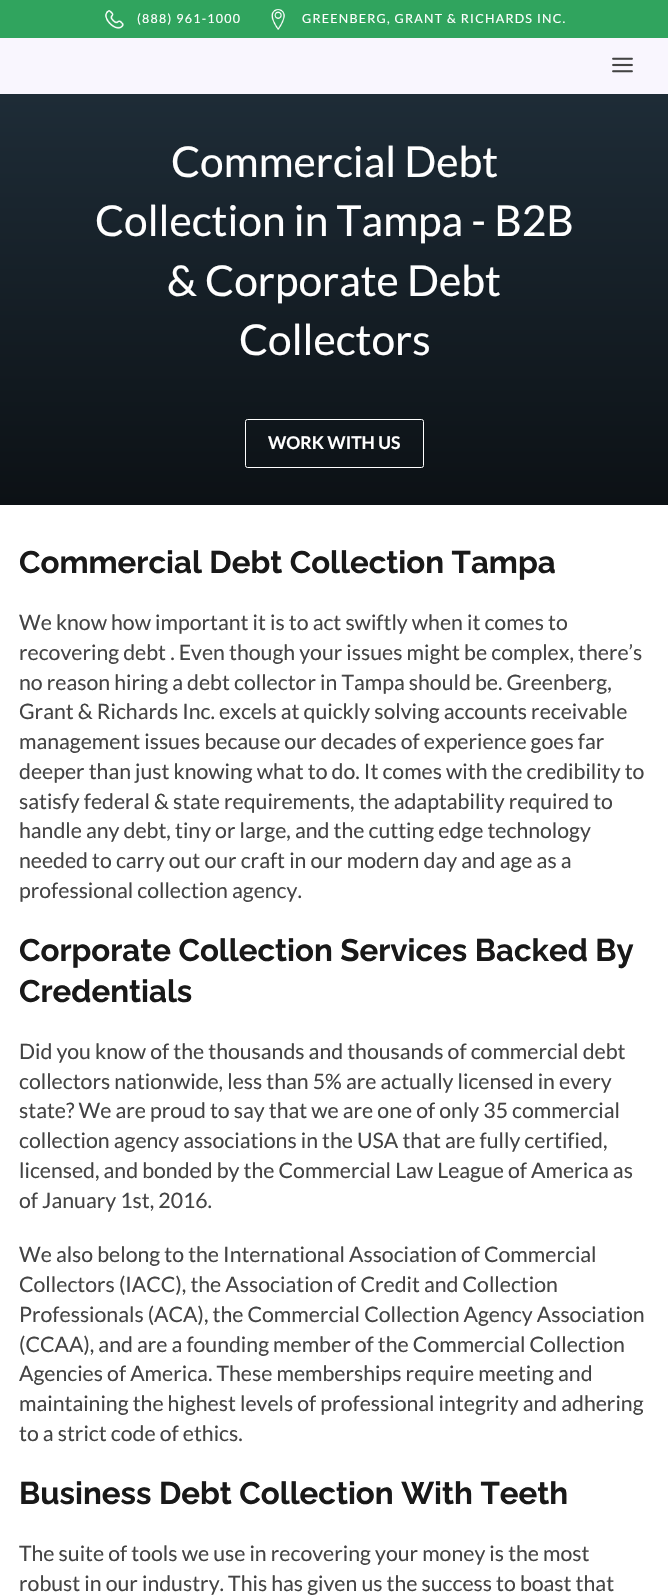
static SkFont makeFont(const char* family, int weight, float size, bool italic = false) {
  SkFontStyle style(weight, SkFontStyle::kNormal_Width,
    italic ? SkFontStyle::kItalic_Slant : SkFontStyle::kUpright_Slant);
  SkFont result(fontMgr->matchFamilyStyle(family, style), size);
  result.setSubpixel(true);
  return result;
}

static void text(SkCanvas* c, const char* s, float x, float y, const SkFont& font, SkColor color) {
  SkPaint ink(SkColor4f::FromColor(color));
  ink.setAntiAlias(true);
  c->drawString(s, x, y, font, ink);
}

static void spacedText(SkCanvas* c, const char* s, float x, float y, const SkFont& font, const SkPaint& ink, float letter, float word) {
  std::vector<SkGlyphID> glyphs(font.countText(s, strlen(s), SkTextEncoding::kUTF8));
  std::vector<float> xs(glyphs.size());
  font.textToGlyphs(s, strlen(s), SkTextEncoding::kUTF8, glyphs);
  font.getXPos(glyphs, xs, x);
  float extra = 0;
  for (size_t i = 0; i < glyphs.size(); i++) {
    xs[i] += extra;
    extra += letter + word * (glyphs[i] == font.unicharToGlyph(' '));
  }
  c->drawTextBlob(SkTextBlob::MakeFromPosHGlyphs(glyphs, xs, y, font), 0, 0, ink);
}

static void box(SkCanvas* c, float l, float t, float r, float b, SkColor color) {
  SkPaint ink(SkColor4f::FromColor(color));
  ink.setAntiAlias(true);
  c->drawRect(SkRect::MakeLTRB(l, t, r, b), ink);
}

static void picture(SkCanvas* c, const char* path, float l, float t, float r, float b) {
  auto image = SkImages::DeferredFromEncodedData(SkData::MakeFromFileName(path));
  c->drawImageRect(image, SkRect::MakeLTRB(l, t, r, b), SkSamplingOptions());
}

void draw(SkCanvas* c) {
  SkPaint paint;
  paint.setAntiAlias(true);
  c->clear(0xffffffff);
  box(c, 0, 0, 668, 38, 0xff30a45e);
  picture(c, "img_01.png", 105, 10, 124, 29);
  SkFont face1 = makeFont("Lato", 400, 12.5f);
  paint.setColor(0xffffffff);
  spacedText(c, "(888) 961-1000", 137, 23, face1, paint, 1.25f, 0);
  picture(c, "img_02.png", 271, 9, 285, 30);
  spacedText(c, "GREENBERG, GRANT & RICHARDS INC.", 302, 23, face1, paint, 1.25f, 0);
  box(c, 0, 38, 668, 94, 0xfff9f6fe);
  picture(c, "img_03.png", 612, 57, 633, 73);
  {
    const SkColor colors[] = {0xff0c1115, 0xff1e2c37};
    const float stops[] = {0, 1};
    const SkPoint ends[] = {{334, 505}, {334, 94}};
    paint.setShader(SkGradientShader::MakeLinear(ends, colors, stops, 2, SkTileMode::kClamp));
    paint.setAlpha(255);
  }
  c->drawRect(SkRect::MakeLTRB(0, 94, 668, 505), paint);
  SkFont face2 = makeFont("Lato", 400, 42.5f);
  text(c, "Commercial Debt", 171, 177, face2, 0xffffffff);
  text(c, "Collection in Tampa - B2B", 95, 236, face2, 0xffffffff);
  text(c, "& Corporate Debt", 167, 296, face2, 0xffffffff);
  text(c, "Collectors", 239, 355, face2, 0xffffffff);
  paint.setStyle(SkPaint::kStroke_Style);
  paint.setStrokeWidth(1);
  paint.setShader(nullptr);
  paint.setColor(0xffffffff);
  c->drawRoundRect(SkRect::MakeLTRB(245.5f, 419.5f, 423.5f, 467.5f), 2, 2, paint);
  SkFont face3 = makeFont("Lato", 700, 17.5f);
  text(c, "WORK WITH US", 268, 449, face3, 0xffffffff);
  SkFont face4 = makeFont("Raleway", 700, 31.25f);
  text(c, "Commercial Debt Collection Tampa", 19, 573, face4, 0xff191919);
  SkFont face5 = makeFont("Lato", 400, 21.25f);
  text(c, "We know how important it is to act swiftly when it comes to", 19, 630, face5, 0xff444444);
  text(c, "recovering debt . Even though your issues might be complex, there’s", 19, 660, face5, 0xff444444);
  text(c, "no reason hiring a debt collector in Tampa should be. Greenberg,", 19, 690, face5, 0xff444444);
  text(c, "Grant & Richards Inc. excels at quickly solving accounts receivable", 19, 719, face5, 0xff444444);
  text(c, "management issues because our decades of experience goes far", 19, 749, face5, 0xff444444);
  text(c, "deeper than just knowing what to do. It comes with the credibility to", 19, 779, face5, 0xff444444);
  text(c, "satisfy federal & state requirements, the adaptability required to", 19, 809, face5, 0xff444444);
  text(c, "handle any debt, tiny or large, and the cutting edge technology", 19, 838, face5, 0xff444444);
  text(c, "needed to carry out our craft in our modern day and age as a", 19, 868, face5, 0xff444444);
  text(c, "professional collection agency.", 19, 898, face5, 0xff444444);
  text(c, "Corporate Collection Services Backed By", 19, 961, face4, 0xff191919);
  text(c, "Credentials", 19, 1002, face4, 0xff191919);
  text(c, "Did you know of the thousands and thousands of commercial debt", 19, 1059, face5, 0xff444444);
  text(c, "collectors nationwide, less than 5% are actually licensed in every", 19, 1089, face5, 0xff444444);
  text(c, "state? We are proud to say that we are one of only 35 commercial", 19, 1118, face5, 0xff444444);
  text(c, "collection agency associations in the USA that are fully certified,", 19, 1148, face5, 0xff444444);
  text(c, "licensed, and bonded by the Commercial Law League of America as", 19, 1178, face5, 0xff444444);
  text(c, "of January 1st, 2016.", 19, 1208, face5, 0xff444444);
  text(c, "We also belong to the International Association of Commercial", 19, 1262, face5, 0xff444444);
  text(c, "Collectors (IACC), the Association of Credit and Collection", 19, 1292, face5, 0xff444444);
  text(c, "Professionals (ACA), the Commercial Collection Agency Association", 19, 1322, face5, 0xff444444);
  text(c, "(CCAA), and are a founding member of the Commercial Collection", 19, 1352, face5, 0xff444444);
  text(c, "Agencies of America. These memberships require meeting and", 19, 1381, face5, 0xff444444);
  text(c, "maintaining the highest levels of professional integrity and adhering", 19, 1411, face5, 0xff444444);
  text(c, "to a strict code of ethics.", 19, 1441, face5, 0xff444444);
  text(c, "Business Debt Collection With Teeth", 19, 1504, face4, 0xff191919);
  text(c, "The suite of tools we use in recovering your money is the most", 19, 1561, face5, 0xff444444);
  text(c, "robust in our industry. This has given us the success to boast that", 19, 1591, face5, 0xff444444);
}
